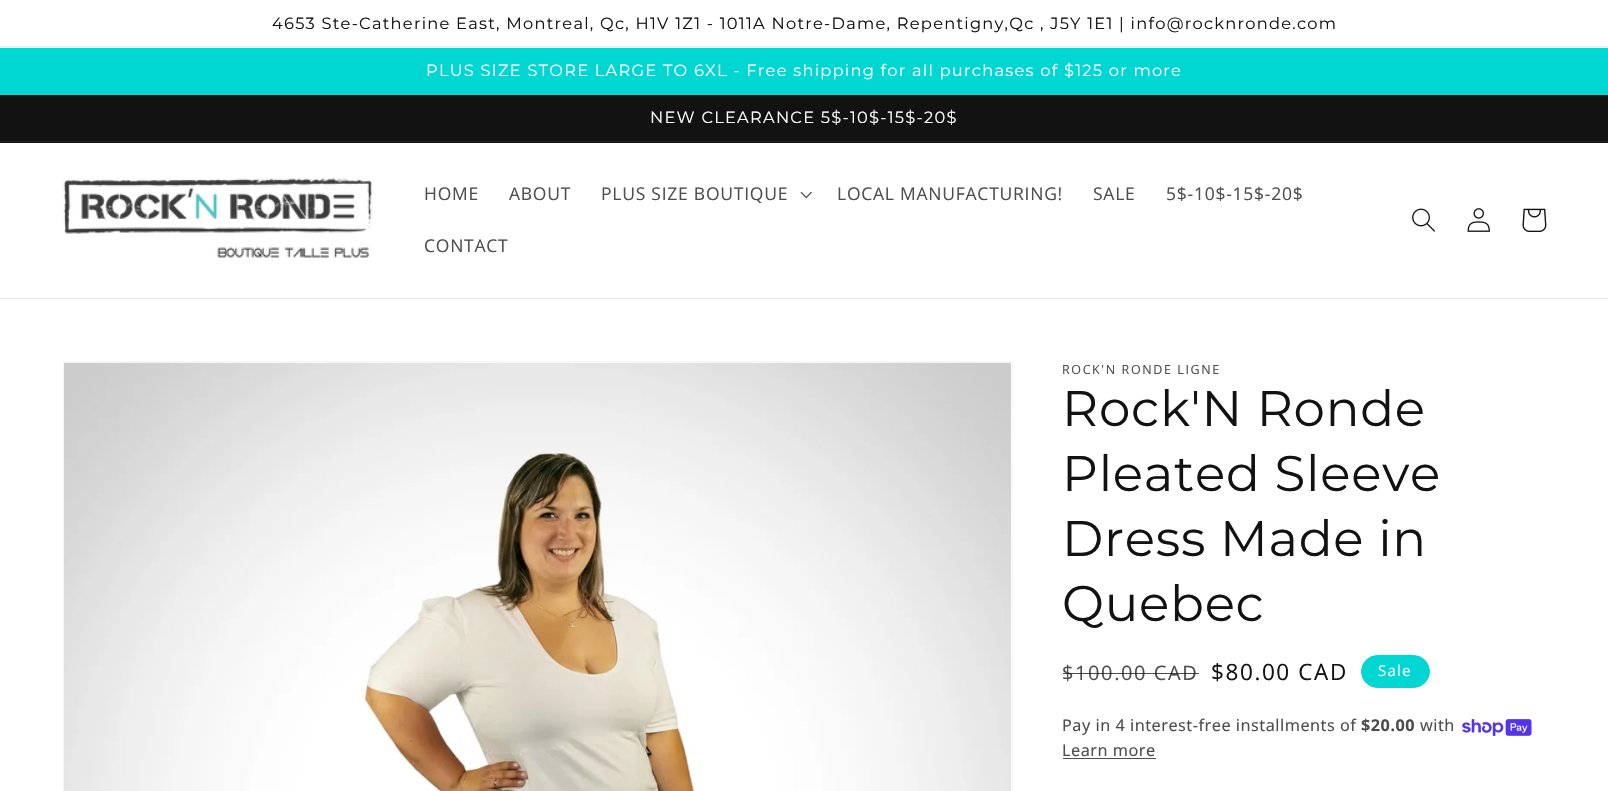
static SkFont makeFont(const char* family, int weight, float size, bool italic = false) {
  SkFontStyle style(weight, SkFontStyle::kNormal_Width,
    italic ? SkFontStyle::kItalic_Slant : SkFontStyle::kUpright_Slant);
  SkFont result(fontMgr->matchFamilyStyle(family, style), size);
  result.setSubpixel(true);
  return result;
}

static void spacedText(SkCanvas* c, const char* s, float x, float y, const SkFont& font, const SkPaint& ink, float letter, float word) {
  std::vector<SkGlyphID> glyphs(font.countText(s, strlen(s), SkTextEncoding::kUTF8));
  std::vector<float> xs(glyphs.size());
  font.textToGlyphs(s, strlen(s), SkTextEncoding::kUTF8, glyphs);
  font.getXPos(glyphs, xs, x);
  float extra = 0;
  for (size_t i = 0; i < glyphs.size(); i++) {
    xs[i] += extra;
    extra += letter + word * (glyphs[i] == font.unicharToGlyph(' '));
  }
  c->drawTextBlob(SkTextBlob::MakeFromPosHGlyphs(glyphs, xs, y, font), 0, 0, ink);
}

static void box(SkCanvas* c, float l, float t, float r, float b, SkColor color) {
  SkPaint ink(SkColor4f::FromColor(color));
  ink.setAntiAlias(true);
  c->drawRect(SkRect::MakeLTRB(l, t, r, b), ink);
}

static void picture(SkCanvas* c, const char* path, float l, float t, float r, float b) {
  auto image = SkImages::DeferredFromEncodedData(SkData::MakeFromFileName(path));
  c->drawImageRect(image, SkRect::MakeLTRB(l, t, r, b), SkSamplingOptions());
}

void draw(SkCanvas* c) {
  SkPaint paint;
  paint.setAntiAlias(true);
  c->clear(0xffffffff);
  box(c, 0, 46, 1608, 47, 0xffececec);
  SkFont face1 = makeFont("Montserrat", 400, 16.25f);
  paint.setColor(0xff121212);
  spacedText(c, "4653 Ste-Catherine East, Montreal, Qc, H1V 1Z1 - 1011A Notre-Dame, Repentigny,Qc , J5Y 1E1 | info@rocknronde.com", 272, 29, face1, paint, 1.25f, 0);
  box(c, 0, 48, 1608, 94, 0xff00d6d2);
  box(c, 0, 94, 1608, 95, 0xff14d9d6);
  paint.setColor(0xffffffff);
  spacedText(c, "PLUS SIZE STORE LARGE TO 6XL - Free shipping for all purchases of $125 or more", 426, 76, face1, paint, 1.25f, 0);
  box(c, 0, 95, 1608, 143, 0xff121212);
  box(c, 0, 141, 1608, 142, 0xff252525);
  spacedText(c, "NEW CLEARANCE 5$-10$-15$-20$", 650, 123, face1, paint, 1.25f, 0);
  box(c, 0, 298, 1608, 299, 0xffececec);
  picture(c, "img_01.png", 63, 178, 372, 258);
  SkFont face2 = makeFont("Open Sans", 400, 17.5f);
  paint.setColor(0xff4d4d4d);
  spacedText(c, "HOME", 424, 200, face2, paint, 0.75f, 0);
  spacedText(c, "ABOUT", 509, 200, face2, paint, 0.75f, 0);
  spacedText(c, "PLUS SIZE BOUTIQUE", 601, 200, face2, paint, 0.75f, 0);
  picture(c, "img_02.png", 800, 191, 812, 199);
  spacedText(c, "LOCAL MANUFACTURING!", 837, 200, face2, paint, 0.75f, 0);
  spacedText(c, "SALE", 1093, 200, face2, paint, 0.75f, 0);
  spacedText(c, "5$-10$-15$-20$", 1166, 200, face2, paint, 0.75f, 0);
  spacedText(c, "CONTACT", 424, 252, face2, paint, 0.75f, 0);
  picture(c, "img_03.png", 1412, 208, 1435, 232);
  picture(c, "img_04.png", 1467, 208, 1490, 232);
  picture(c, "img_05.png", 1522, 208, 1547, 232);
  paint.setStyle(SkPaint::kStroke_Style);
  paint.setStrokeWidth(1);
  paint.setColor(0xfff6f6f6);
  c->drawRect(SkRect::MakeLTRB(63.5f, 361.5f, 1012.5f, 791.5f), paint);
  picture(c, "img_06.png", 64, 362, 1011, 791);
  SkFont face3 = makeFont("Open Sans", 400, 12.5f);
  paint.setStyle(SkPaint::kFill_Style);
  paint.setColor(0xff4d4d4d);
  spacedText(c, "ROCK'N RONDE LIGNE", 1062, 374, face3, paint, 1.6f, 0);
  SkFont face4 = makeFont("Montserrat", 400, 50);
  paint.setColor(0xff121212);
  spacedText(c, "Rock'N Ronde", 1062, 426, face4, paint, 0.75f, 0);
  spacedText(c, "Pleated Sleeve", 1062, 491, face4, paint, 0.75f, 0);
  spacedText(c, "Dress Made in", 1062, 556, face4, paint, 0.75f, 0);
  spacedText(c, "Quebec", 1062, 621, face4, paint, 0.75f, 0);
  SkFont face5 = makeFont("Open Sans", 400, 20);
  paint.setColor(0xff4d4d4d);
  spacedText(c, "$100.00 CAD", 1062, 680, face5, paint, 1.6f, 0);
  box(c, 1063, 673, 1199, 674, 0xbf121212);
  SkFont face6 = makeFont("Open Sans", 400, 22.5f);
  paint.setColor(0xff121212);
  spacedText(c, "$80.00 CAD", 1211, 680, face6, paint, 1.6f, 0);
  paint.setColor(0xff00d6d2);
  c->drawRoundRect(SkRect::MakeLTRB(1361.5f, 655.5f, 1429.5f, 687.5f), 16, 16, paint);
  paint.setStyle(SkPaint::kStroke_Style);
  c->drawRoundRect(SkRect::MakeLTRB(1361.5f, 655.5f, 1429.5f, 687.5f), 16, 16, paint);
  SkFont face7 = makeFont("Open Sans", 400, 15);
  paint.setStyle(SkPaint::kFill_Style);
  paint.setColor(0xffffffff);
  spacedText(c, "Sale", 1378, 676, face7, paint, 1.25f, 0);
  SkFont face8 = makeFont("Noto Sans", 400, 16.25f);
  paint.setColor(0xff4d4d4d);
  spacedText(c, "Pay in 4 interest-free installments of", 1062, 731, face8, paint, 0.5f, 0);
  SkFont face9 = makeFont("Noto Sans", 700, 16.25f);
  spacedText(c, "$20.00", 1361, 731, face9, paint, 0.5f, 0);
  spacedText(c, "with", 1420, 731, face8, paint, 0.5f, 0);
  picture(c, "img_07.png", 1462, 719, 1532, 736);
  spacedText(c, "Learn more", 1062, 756, face8, paint, 0.5f, 0);
  box(c, 1063, 758, 1156, 759, 0xff4d4d4d);
}
